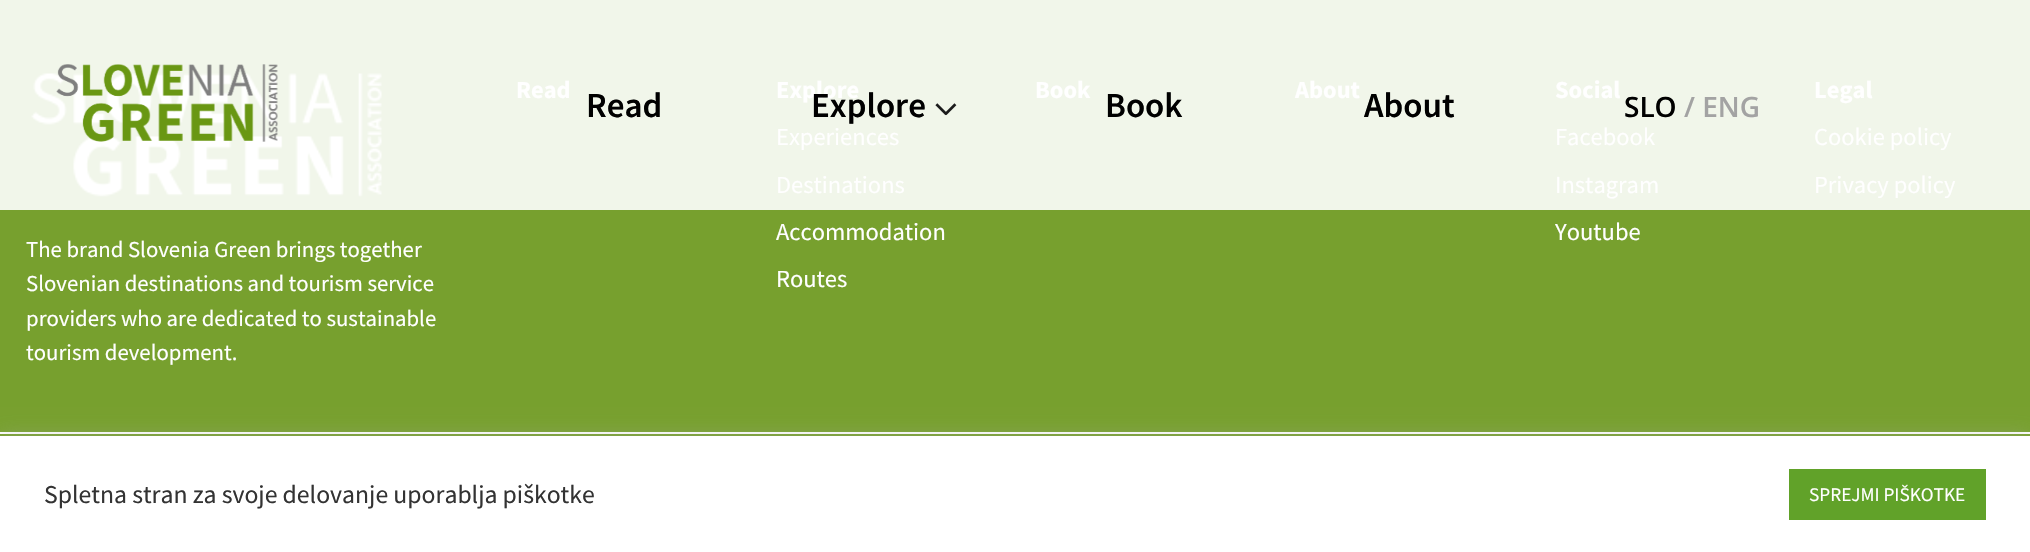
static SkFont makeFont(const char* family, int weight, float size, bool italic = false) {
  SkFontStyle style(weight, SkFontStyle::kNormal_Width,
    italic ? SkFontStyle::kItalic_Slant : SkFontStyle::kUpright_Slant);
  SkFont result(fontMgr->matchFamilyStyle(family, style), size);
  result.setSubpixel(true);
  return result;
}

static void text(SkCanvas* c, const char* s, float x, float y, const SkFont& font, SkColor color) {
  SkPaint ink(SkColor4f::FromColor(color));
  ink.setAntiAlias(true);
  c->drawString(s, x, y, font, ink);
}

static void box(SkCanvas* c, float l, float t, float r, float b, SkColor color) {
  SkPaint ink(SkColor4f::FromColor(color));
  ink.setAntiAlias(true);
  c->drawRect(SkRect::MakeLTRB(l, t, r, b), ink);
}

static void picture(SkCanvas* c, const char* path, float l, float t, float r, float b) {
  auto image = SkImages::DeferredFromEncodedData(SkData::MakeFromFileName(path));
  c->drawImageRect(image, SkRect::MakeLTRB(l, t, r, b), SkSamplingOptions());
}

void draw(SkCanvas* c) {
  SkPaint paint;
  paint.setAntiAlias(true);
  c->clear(0xff77a02e);
  box(c, 0, 0, 2030, 210, 0xfff1f6ea);
  SkFont face1 = makeFont("Source Sans Pro", 700, 24.5f);
  text(c, "Read", 516, 98, face1, 0xffffffff);
  text(c, "Explore", 776, 98, face1, 0xffffffff);
  SkFont face2 = makeFont("Source Sans Pro", 400, 24.5f);
  text(c, "Experiences", 776, 145, face2, 0xffffffff);
  text(c, "Destinations", 776, 193, face2, 0xffffffff);
  text(c, "Accommodation", 776, 240, face2, 0xffffffff);
  text(c, "Routes", 776, 287, face2, 0xffffffff);
  text(c, "Book", 1035, 98, face1, 0xffffffff);
  text(c, "About", 1295, 98, face1, 0xffffffff);
  text(c, "Social", 1555, 98, face1, 0xffffffff);
  text(c, "Facebook", 1555, 145, face2, 0xffffffff);
  text(c, "Instagram", 1555, 193, face2, 0xffffffff);
  text(c, "Youtube", 1555, 240, face2, 0xffffffff);
  text(c, "Legal", 1814, 98, face1, 0xffffffff);
  text(c, "Cookie policy", 1814, 145, face2, 0xffffffff);
  text(c, "Privacy policy", 1814, 193, face2, 0xffffffff);
  picture(c, "img_01.png", 31, 73, 382, 197);
  SkFont face3 = makeFont("Source Sans Pro", 400, 22.75f);
  text(c, "The brand Slovenia Green brings together", 26, 257, face3, 0xffffffff);
  text(c, "Slovenian destinations and tourism service", 26, 291, face3, 0xffffffff);
  text(c, "providers who are dedicated to sustainable", 26, 326, face3, 0xffffffff);
  text(c, "tourism development.", 26, 360, face3, 0xffffffff);
  box(c, 0, 432, 2030, 434, 0xffffffff);
  picture(c, "img_02.png", 56, 64, 278, 142);
  SkFont face4 = makeFont("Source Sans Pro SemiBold", 600, 35);
  text(c, "Read", 586, 117, face4, 0xff000000);
  text(c, "Explore", 811, 117, face4, 0xff000000);
  picture(c, "img_03.png", 935, 103, 957, 116);
  text(c, "Book", 1105, 117, face4, 0xff000000);
  text(c, "About", 1364, 117, face4, 0xff000000);
  SkFont face5 = makeFont("Open Sans", 600, 28);
  text(c, "SLO", 1624, 117, face5, 0xff000000);
  text(c, "/ ENG", 1684, 117, face5, 0xffa3a3a3);
  paint.setColor(0x4dacabab);
  paint.setMaskFilter(SkMaskFilter::MakeBlur(kNormal_SkBlurStyle, 9));
  c->drawRect(SkRect::MakeLTRB(0, 434, 2030, 551), paint);
  paint.setMaskFilter(nullptr);
  box(c, 0, 436, 2030, 552, 0xffffffff);
  SkFont face6 = makeFont("Source Sans Pro", 400, 25.7f);
  text(c, "Spletna stran za svoje delovanje uporablja piškotke", 44, 503, face6, 0xff333333);
  box(c, 1789, 469, 1986, 520, 0xff61a229);
  SkFont face7 = makeFont("Source Sans Pro", 400, 19.25f);
  text(c, "SPREJMI PIŠKOTKE", 1809, 501, face7, 0xffffffff);
}
